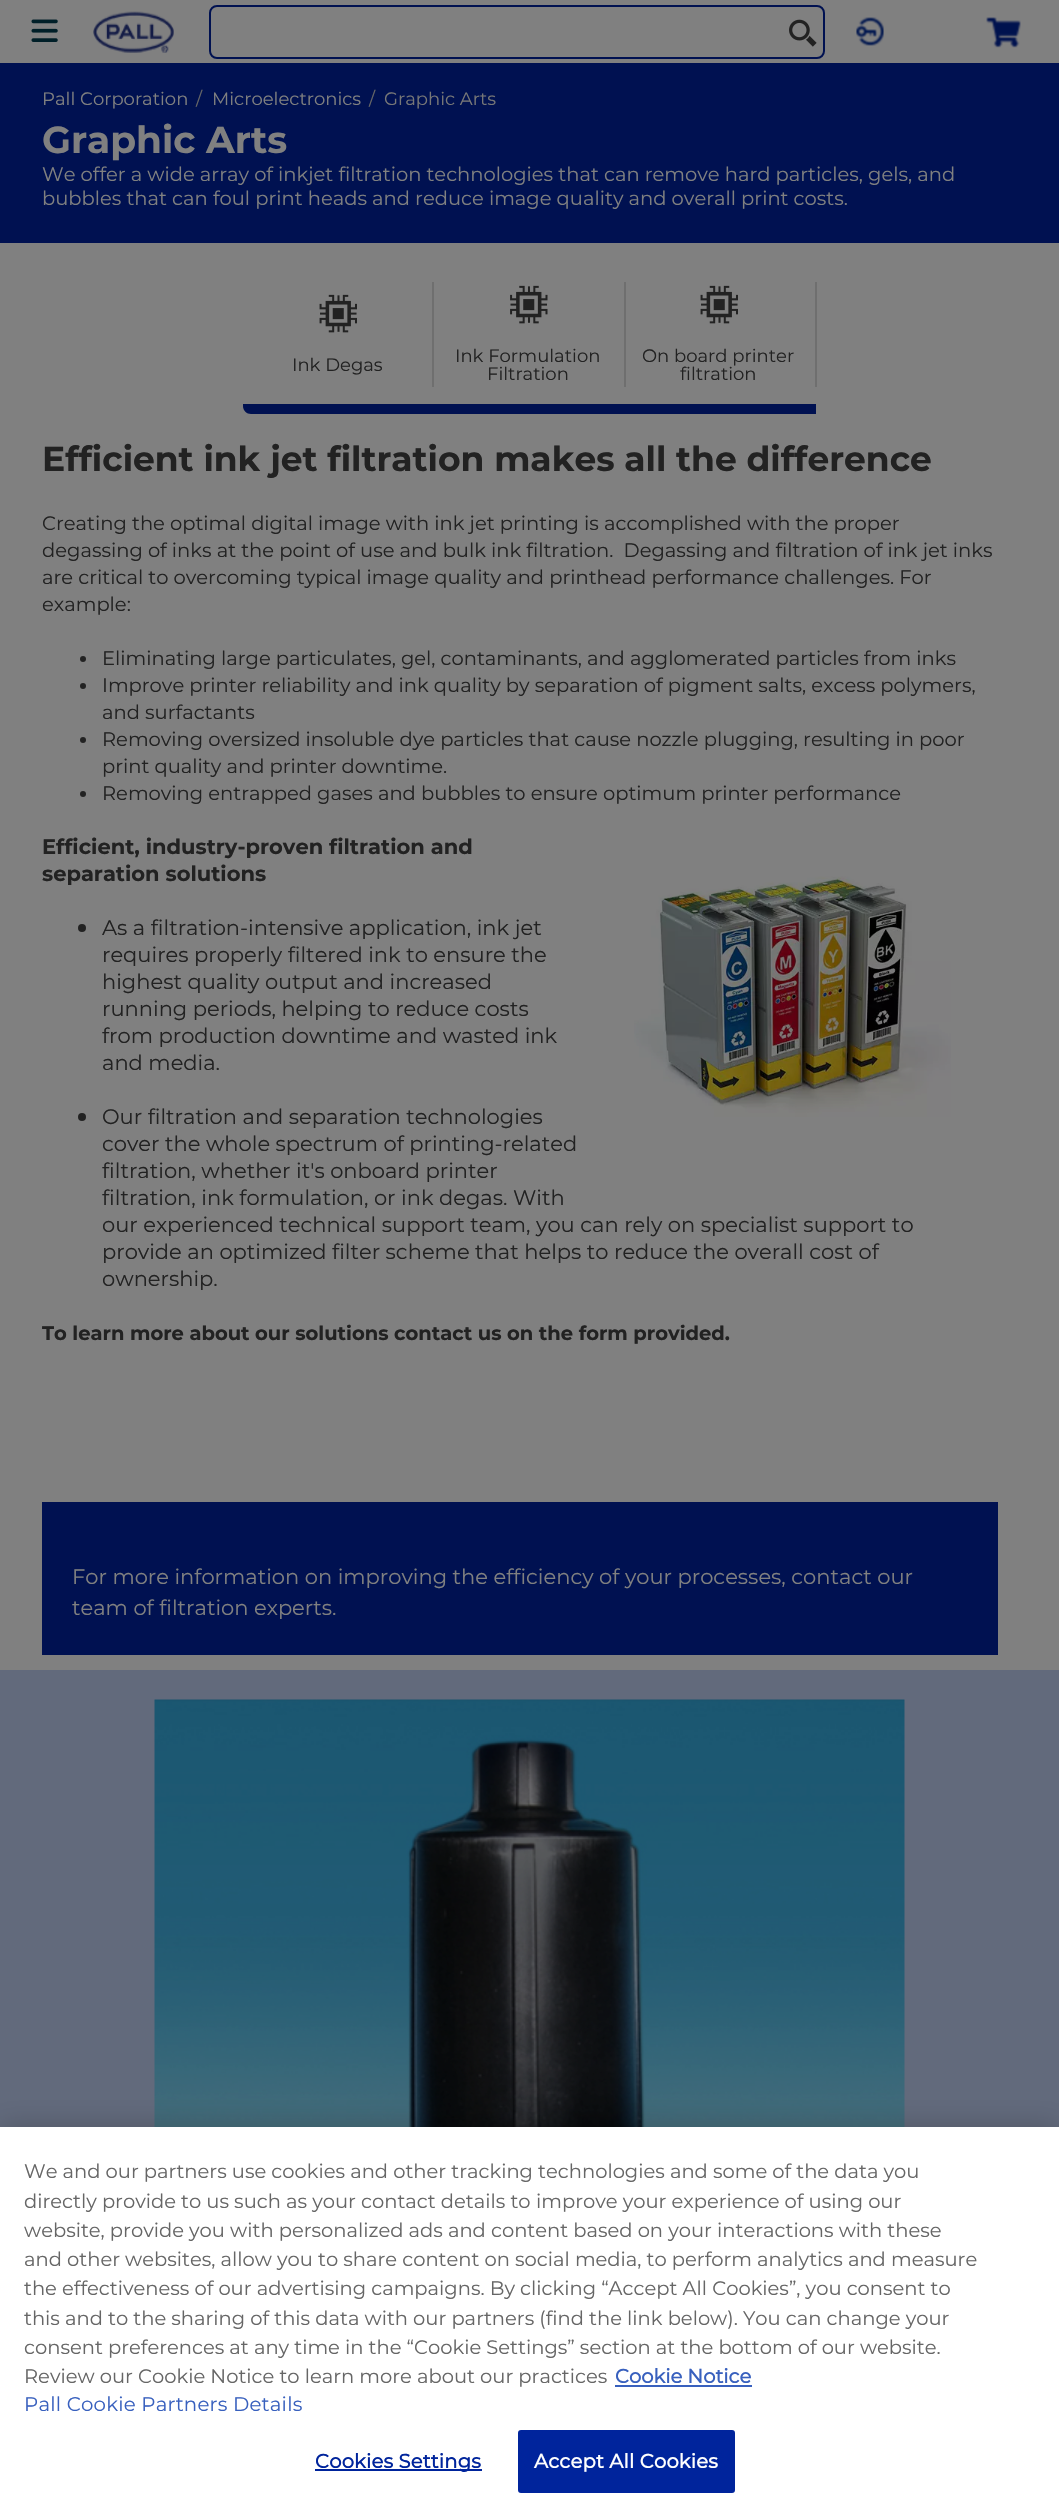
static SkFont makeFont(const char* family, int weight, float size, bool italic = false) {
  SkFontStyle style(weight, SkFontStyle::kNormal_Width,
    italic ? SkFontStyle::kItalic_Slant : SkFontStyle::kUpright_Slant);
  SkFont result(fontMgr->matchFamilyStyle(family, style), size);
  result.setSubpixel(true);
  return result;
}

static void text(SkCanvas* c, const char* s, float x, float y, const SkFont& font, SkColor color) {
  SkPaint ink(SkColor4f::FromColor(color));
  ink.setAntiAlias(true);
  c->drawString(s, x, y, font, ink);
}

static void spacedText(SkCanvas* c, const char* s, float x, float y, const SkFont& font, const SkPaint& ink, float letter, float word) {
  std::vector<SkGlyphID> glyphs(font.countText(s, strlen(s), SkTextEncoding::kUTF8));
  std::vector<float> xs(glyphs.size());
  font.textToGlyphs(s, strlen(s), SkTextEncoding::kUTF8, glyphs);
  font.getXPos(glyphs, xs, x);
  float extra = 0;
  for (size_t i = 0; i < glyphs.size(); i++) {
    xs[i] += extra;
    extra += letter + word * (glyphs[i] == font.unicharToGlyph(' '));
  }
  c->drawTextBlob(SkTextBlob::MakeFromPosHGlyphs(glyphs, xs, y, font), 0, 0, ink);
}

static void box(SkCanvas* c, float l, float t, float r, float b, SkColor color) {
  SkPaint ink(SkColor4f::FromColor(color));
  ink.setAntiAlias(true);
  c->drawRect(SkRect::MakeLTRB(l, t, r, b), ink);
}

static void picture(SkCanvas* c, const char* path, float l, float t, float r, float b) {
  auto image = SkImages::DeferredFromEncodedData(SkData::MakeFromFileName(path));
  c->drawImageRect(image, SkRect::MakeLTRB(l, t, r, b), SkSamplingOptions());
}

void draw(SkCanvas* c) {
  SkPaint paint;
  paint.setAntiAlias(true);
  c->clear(0xff808080);
  picture(c, "img_01.png", 31, 19, 58, 42);
  picture(c, "img_02.png", 93, 11, 174, 53);
  paint.setStyle(SkPaint::kStroke_Style);
  paint.setStrokeWidth(2);
  paint.setColor(0xff001151);
  c->drawRoundRect(SkRect::MakeLTRB(210, 6, 824, 58), 7, 7, paint);
  picture(c, "img_03.png", 789, 19, 817, 47);
  picture(c, "img_04.png", 856, 17, 884, 46);
  picture(c, "img_05.png", 986, 17, 1021, 48);
  box(c, 0, 63, 1059, 243, 0xff001151);
  SkFont face1 = makeFont("Montserrat", 400, 18);
  text(c, "Pall Corporation", 42, 105, face1, 0xff808080);
  text(c, "/", 196, 105, face1, 0xff666666);
  text(c, "Microelectronics", 212, 105, face1, 0xff808080);
  text(c, "/", 369, 105, face1, 0xff666666);
  text(c, "Graphic Arts", 384, 105, face1, 0xff777777);
  SkFont face2 = makeFont("Montserrat", 700, 37.5f);
  text(c, "Graphic Arts", 42, 153, face2, 0xff808080);
  SkFont face3 = makeFont("Montserrat", 400, 19.5f);
  text(c, "We offer a wide array of inkjet filtration technologies that can remove hard particles, gels, and", 42, 181, face3, 0xff808080);
  text(c, "bubbles that can foul print heads and reduce image quality and overall print costs.", 42, 205, face3, 0xff808080);
  box(c, 432, 282, 434, 387, 0xff6f6f6f);
  picture(c, "img_06.png", 319, 294, 357, 333);
  text(c, "Ink Degas", 292, 371, face1, 0xff222222);
  paint.setStyle(SkPaint::kFill_Style);
  c->drawPath(SkPathBuilder().moveTo(243, 404).lineTo(434, 404).lineTo(434, 414).lineTo(251, 414).cubicTo(246.5f, 414, 243, 410.5f, 243, 406).close().detach(), paint);
  box(c, 624, 282, 626, 387, 0xff6f6f6f);
  picture(c, "img_07.png", 510, 285, 548, 324);
  text(c, "Ink Formulation", 455, 362, face1, 0xff222222);
  text(c, "Filtration", 487, 380, face1, 0xff222222);
  box(c, 434, 404, 816, 414, 0xff001151);
  box(c, 815, 282, 817, 387, 0xff6f6f6f);
  picture(c, "img_06.png", 700, 285, 738, 324);
  text(c, "On board printer", 642, 362, face1, 0xff222222);
  text(c, "filtration", 680, 380, face1, 0xff222222);
  SkFont face4 = makeFont("Montserrat", 700, 34.5f);
  text(c, "Efficient ink jet filtration makes all the difference", 42, 471, face4, 0xff222222);
  text(c, "Creating the optimal digital image with ink jet printing is accomplished with the proper", 42, 530, face3, 0xff222222);
  text(c, "degassing of inks at the point of use and bulk ink filtration.  Degassing and filtration of ink jet inks", 42, 557, face3, 0xff222222);
  text(c, "are critical to overcoming typical image quality and printhead performance challenges. For", 42, 584, face3, 0xff222222);
  text(c, "example:", 42, 611, face3, 0xff222222);
  paint.setColor(0xff222222);
  c->drawCircle(83, 659, 3, paint);
  text(c, "Eliminating large particulates, gel, contaminants, and agglomerated particles from inks", 102, 665, face3, 0xff222222);
  c->drawCircle(83, 686, 3, paint);
  text(c, "Improve printer reliability and ink quality by separation of pigment salts, excess polymers,", 102, 692, face3, 0xff222222);
  text(c, "and surfactants", 102, 719, face3, 0xff222222);
  c->drawCircle(83, 740, 3, paint);
  text(c, "Removing oversized insoluble dye particles that cause nozzle plugging, resulting in poor", 102, 746, face3, 0xff222222);
  text(c, "print quality and printer downtime.", 102, 773, face3, 0xff222222);
  c->drawCircle(83, 794, 3, paint);
  text(c, "Removing entrapped gases and bubbles to ensure optimum printer performance", 102, 800, face3, 0xff222222);
  SkFont face5 = makeFont("Montserrat", 700, 21);
  text(c, "Efficient, industry-proven filtration and", 42, 854, face5, 0xff222222);
  text(c, "separation solutions", 42, 881, face5, 0xff222222);
  c->drawCircle(82, 928, 4, paint);
  SkFont face6 = makeFont("Montserrat", 400, 21);
  text(c, "As a filtration-intensive application, ink jet", 102, 935, face6, 0xff222222);
  text(c, "requires properly filtered ink to ensure the", 102, 962, face6, 0xff222222);
  text(c, "highest quality output and increased", 102, 989, face6, 0xff222222);
  text(c, "running periods, helping to reduce costs", 102, 1016, face6, 0xff222222);
  text(c, "from production downtime and wasted ink", 102, 1043, face6, 0xff222222);
  text(c, "and media.", 102, 1070, face6, 0xff222222);
  c->drawCircle(82, 1117, 4, paint);
  text(c, "Our filtration and separation technologies", 102, 1124, face6, 0xff222222);
  text(c, "cover the whole spectrum of printing-related", 102, 1151, face6, 0xff222222);
  text(c, "filtration, whether it's onboard printer", 102, 1178, face6, 0xff222222);
  text(c, "filtration, ink formulation, or ink degas. With", 102, 1205, face6, 0xff222222);
  text(c, "our experienced technical support team, you can rely on specialist support to", 102, 1232, face6, 0xff222222);
  text(c, "provide an optimized filter scheme that helps to reduce the overall cost of", 102, 1259, face6, 0xff222222);
  text(c, "ownership.", 102, 1286, face6, 0xff222222);
  picture(c, "img_08.png", 634, 876, 951, 1117);
  SkFont face7 = makeFont("Montserrat", 700, 19.5f);
  text(c, "To learn more about our solutions contact us on the form provided.", 42, 1340, face7, 0xff222222);
  box(c, 42, 1502, 998, 1655, 0xff001151);
  text(c, "For more information on improving the efficiency of your processes, contact our", 72, 1584, face6, 0xff808080);
  text(c, "team of filtration experts.", 72, 1615, face6, 0xff808080);
  box(c, 0, 1670, 1059, 2127, 0xff626a7c);
  picture(c, "img_09.png", 154, 1699, 905, 2127);
  paint.setColor(0x33000000);
  paint.setMaskFilter(SkMaskFilter::MakeBlur(kNormal_SkBlurStyle, 13.5f));
  c->drawRect(SkRect::MakeLTRB(0, 2127, 1059, 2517), paint);
  paint.setMaskFilter(nullptr);
  box(c, 0, 2127, 1059, 2516, 0xffffffff);
  text(c, "We and our partners use cookies and other tracking technologies and some of the data you", 24, 2178, face3, 0xff666666);
  text(c, "directly provide to us such as your contact details to", 24, 2208, face3, 0xff666666);
  text(c, "improve your experience of using our", 536, 2208, face3, 0xff666666);
  text(c, "website, provide you with personalized ads and content based on your interactions with these", 24, 2237, face3, 0xff666666);
  text(c, "and other websites, allow you to share content on social media, to perform analytics and measure", 24, 2266, face3, 0xff666666);
  text(c, "the effectiveness of our advertising campaigns. By clicking “Accept All Cookies”, you consent to", 24, 2295, face3, 0xff666666);
  text(c, "this and to the sharing of this data with our partners (find the link below). You can change your", 24, 2325, face3, 0xff666666);
  text(c, "consent preferences at any time in the “Cookie Settings” section at the bottom of our website.", 24, 2354, face3, 0xff666666);
  text(c, "Review our Cookie Notice to learn more about our practices", 24, 2383, face3, 0xff666666);
  SkFont face8 = makeFont("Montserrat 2", 700, 19.5f);
  text(c, "Cookie Notice", 615, 2383, face8, 0xff3860be);
  box(c, 615, 2385, 752, 2387, 0xff3860be);
  SkFont face9 = makeFont("Montserrat", 400, 19.75f);
  paint.setColor(0xff3860be);
  spacedText(c, "Pall Cookie Partners Details", 24, 2411, face9, paint, 0.2f, 0);
  box(c, 315, 2469, 482, 2471, 0xff00249c);
  paint.setColor(0xff00249c);
  spacedText(c, "Cookies Settings", 315, 2468, face8, paint, 0.2f, 0);
  c->drawRoundRect(SkRect::MakeLTRB(519, 2431, 734, 2492), 2, 2, paint);
  paint.setStyle(SkPaint::kStroke_Style);
  c->drawRoundRect(SkRect::MakeLTRB(519, 2431, 734, 2492), 2, 2, paint);
  paint.setStyle(SkPaint::kFill_Style);
  paint.setColor(0xffffffff);
  spacedText(c, "Accept All Cookies", 534, 2468, face8, paint, 0.2f, 0);
}
